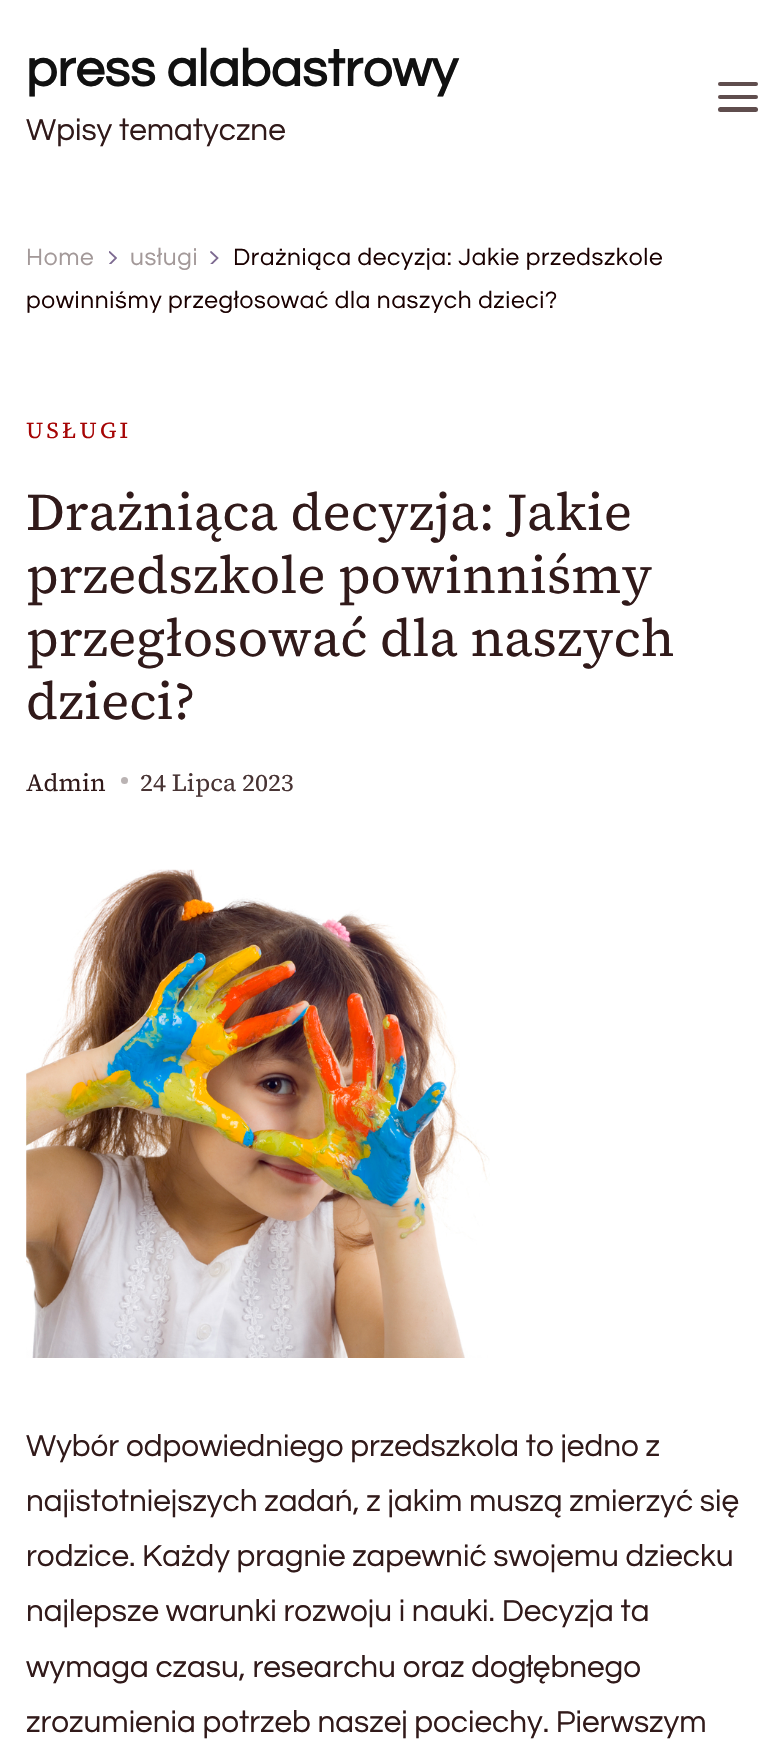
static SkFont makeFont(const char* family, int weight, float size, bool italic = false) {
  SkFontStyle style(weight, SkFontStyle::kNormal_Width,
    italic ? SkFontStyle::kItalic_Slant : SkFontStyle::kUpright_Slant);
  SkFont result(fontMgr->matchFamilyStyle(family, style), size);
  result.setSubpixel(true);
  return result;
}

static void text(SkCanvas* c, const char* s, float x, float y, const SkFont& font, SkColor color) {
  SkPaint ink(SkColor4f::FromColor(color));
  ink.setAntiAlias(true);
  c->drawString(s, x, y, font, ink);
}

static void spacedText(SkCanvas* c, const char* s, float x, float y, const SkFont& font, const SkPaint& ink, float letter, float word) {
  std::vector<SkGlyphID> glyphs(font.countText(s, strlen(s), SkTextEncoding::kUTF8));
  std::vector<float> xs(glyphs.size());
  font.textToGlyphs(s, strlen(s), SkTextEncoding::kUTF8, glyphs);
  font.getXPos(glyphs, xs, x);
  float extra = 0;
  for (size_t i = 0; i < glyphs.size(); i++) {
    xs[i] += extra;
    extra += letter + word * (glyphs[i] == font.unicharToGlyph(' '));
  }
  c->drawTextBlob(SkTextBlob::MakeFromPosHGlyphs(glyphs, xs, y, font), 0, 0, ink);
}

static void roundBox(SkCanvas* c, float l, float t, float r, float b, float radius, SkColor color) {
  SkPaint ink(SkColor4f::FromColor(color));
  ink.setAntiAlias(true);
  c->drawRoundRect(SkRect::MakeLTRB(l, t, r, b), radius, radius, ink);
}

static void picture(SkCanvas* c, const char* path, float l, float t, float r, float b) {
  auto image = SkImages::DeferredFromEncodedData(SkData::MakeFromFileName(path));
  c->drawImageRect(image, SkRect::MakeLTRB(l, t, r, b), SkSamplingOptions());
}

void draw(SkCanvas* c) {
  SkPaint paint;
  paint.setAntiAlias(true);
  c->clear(0xffffffff);
  SkFont face1 = makeFont("Questrial", 700, 52.5f);
  text(c, "press alabastrowy", 26, 86, face1, 0xff111111);
  SkFont face2 = makeFont("Questrial", 400, 31.5f);
  text(c, "Wpisy tematyczne", 26, 140, face2, 0xff311a1a);
  roundBox(c, 718, 82, 758, 86, 2, 0xff5f4d4d);
  roundBox(c, 718, 95, 758, 99, 2, 0xff5f4d4d);
  roundBox(c, 718, 107, 758, 112, 2.5f, 0xff5f4d4d);
  c->save();
  c->clipRect(SkRect::MakeLTRB(210, 250, 219, 264));
  paint.setStyle(SkPaint::kStroke_Style);
  paint.setStrokeWidth(1.8f);
  paint.setStrokeCap(SkPaint::kRound_Cap);
  paint.setColor(0xff7d6a91);
  c->drawPath(SkPathBuilder().moveTo(211, 252).lineTo(217.5f, 258).lineTo(211, 264.5f).detach(), paint);
  c->restore();
  SkFont face3 = makeFont("Questrial", 400, 24.5f);
  paint.setStyle(SkPaint::kFill_Style);
  paint.setColor(0xff1a0101);
  spacedText(c, "Drażniąca decyzja: Jakie przedszkole", 233, 265, face3, paint, 0.65f, 0);
  spacedText(c, "powinniśmy przegłosować dla naszych dzieci?", 26, 308, face3, paint, 0.65f, 0);
  paint.setColor(0xffa39999);
  spacedText(c, "Home", 26, 265, face3, paint, 0.65f, 0);
  c->save();
  c->clipRect(SkRect::MakeLTRB(109, 250, 117, 264));
  paint.setStyle(SkPaint::kStroke_Style);
  paint.setColor(0xff7d6a91);
  c->drawPath(SkPathBuilder().moveTo(109.5f, 252).lineTo(116, 258).lineTo(109.5f, 264.5f).detach(), paint);
  c->restore();
  paint.setStyle(SkPaint::kFill_Style);
  paint.setColor(0xffa39999);
  spacedText(c, "usługi", 130, 265, face3, paint, 0.65f, 0);
  SkFont face4 = makeFont("Source Serif 4", 400, 22.75f);
  paint.setColor(0xffa60505);
  spacedText(c, "USŁUGI", 26, 438, face4, paint, 3.25f, 0);
  SkFont face5 = makeFont("Source Serif 4", 400, 52.5f);
  text(c, "Drażniąca decyzja: Jakie", 26, 530, face5, 0xff311a1a);
  text(c, "przedszkole powinniśmy", 26, 593, face5, 0xff311a1a);
  text(c, "przegłosować dla naszych", 26, 656, face5, 0xff311a1a);
  text(c, "dzieci?", 26, 719, face5, 0xff311a1a);
  SkFont face6 = makeFont("Source Serif 4", 400, 24.5f);
  text(c, "Admin", 26, 791, face6, 0xff311a1a);
  paint.setColor(0xffbab3b3);
  c->drawCircle(124.5f, 780.5f, 3.5f, paint);
  text(c, "24 Lipca 2023", 140, 791, face6, 0xff483434);
  picture(c, "img_01.png", 26, 869, 490, 1358);
  text(c, "Wybór odpowiedniego przedszkola to jedno z", 26, 1456, face2, 0xff311a1a);
  text(c, "najistotniejszych zadań, z jakim muszą zmierzyć się", 26, 1511, face2, 0xff311a1a);
  text(c, "rodzice. Każdy pragnie zapewnić swojemu dziecku", 26, 1566, face2, 0xff311a1a);
  text(c, "najlepsze warunki rozwoju i nauki. Decyzja ta", 26, 1621, face2, 0xff311a1a);
  text(c, "wymaga czasu, researchu oraz dogłębnego", 26, 1677, face2, 0xff311a1a);
  text(c, "zrozumienia potrzeb naszej pociechy. Pierwszym", 26, 1732, face2, 0xff311a1a);
}
